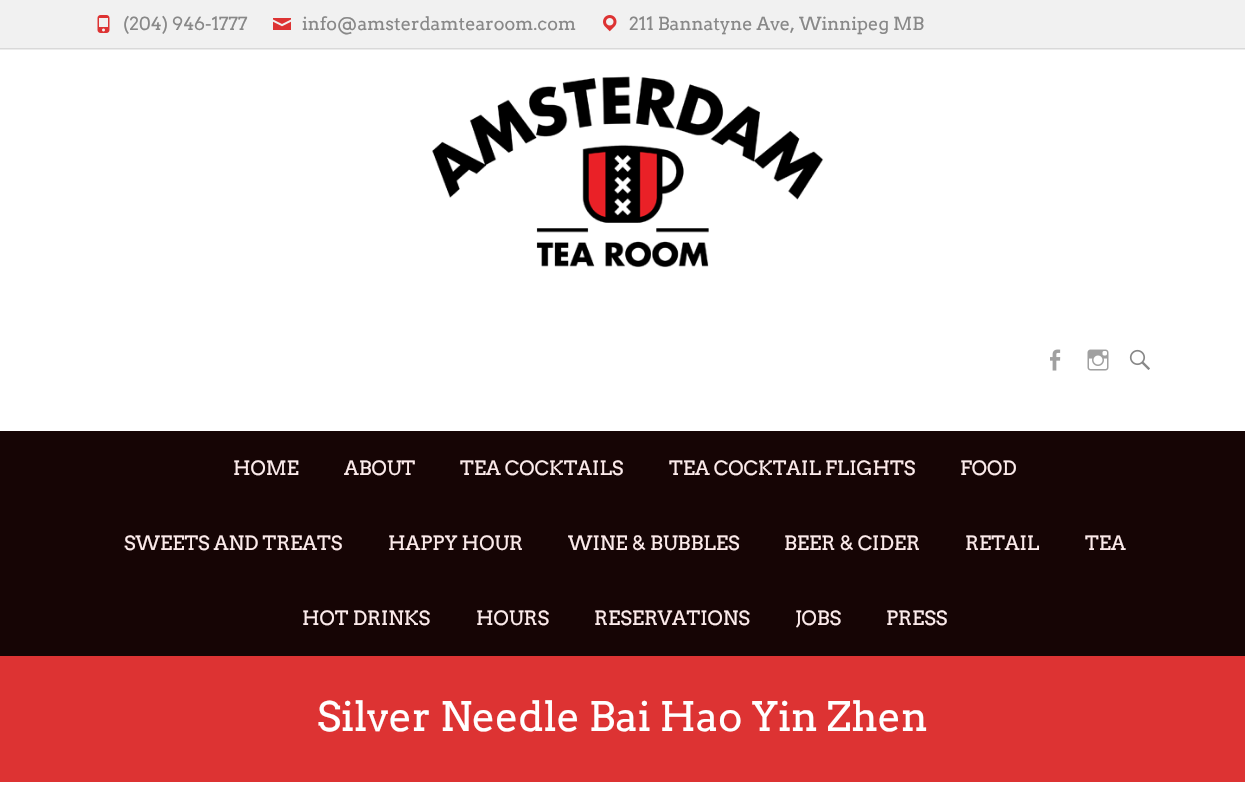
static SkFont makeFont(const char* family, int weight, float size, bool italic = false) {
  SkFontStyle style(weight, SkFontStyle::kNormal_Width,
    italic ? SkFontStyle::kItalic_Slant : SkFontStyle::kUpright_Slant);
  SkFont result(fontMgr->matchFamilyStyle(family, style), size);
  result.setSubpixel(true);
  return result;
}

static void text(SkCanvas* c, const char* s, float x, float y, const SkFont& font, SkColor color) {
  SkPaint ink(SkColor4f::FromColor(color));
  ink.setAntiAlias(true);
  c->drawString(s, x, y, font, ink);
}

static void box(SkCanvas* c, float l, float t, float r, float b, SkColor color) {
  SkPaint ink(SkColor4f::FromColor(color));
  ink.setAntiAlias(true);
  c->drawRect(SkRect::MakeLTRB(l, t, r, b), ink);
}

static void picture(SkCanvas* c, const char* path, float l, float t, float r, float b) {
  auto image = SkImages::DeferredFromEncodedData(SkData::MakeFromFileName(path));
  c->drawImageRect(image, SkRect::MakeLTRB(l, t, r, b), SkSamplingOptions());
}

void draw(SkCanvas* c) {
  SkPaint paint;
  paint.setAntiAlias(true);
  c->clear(0xffffffff);
  box(c, 0, 0, 1245, 48, 0xfff1f1f1);
  box(c, 0, 48, 1245, 50, 0xffd9d9d9);
  picture(c, "img_01.png", 97, 15, 110, 33);
  SkFont face1 = makeFont("Arvo", 400, 18);
  text(c, "(204) 946-1777", 123, 30, face1, 0xff888888);
  picture(c, "img_02.png", 273, 18, 291, 30);
  text(c, "info@amsterdamtearoom.com", 302, 30, face1, 0xff888888);
  picture(c, "img_03.png", 603, 15, 617, 32);
  text(c, "211 Bannatyne Ave, Winnipeg MB", 629, 30, face1, 0xff888888);
  picture(c, "img_04.png", 0, 49, 1245, 268);
  picture(c, "img_05.png", 1050, 349, 1061, 371);
  picture(c, "img_06.png", 1087, 349, 1109, 371);
  picture(c, "img_07.png", 1129, 349, 1150, 370);
  box(c, 0, 656, 1245, 782, 0xffdd3333);
  box(c, 0, 431, 1245, 656, 0xff160505);
  SkFont face2 = makeFont("Arvo", 400, 19.5f);
  text(c, "HOME", 233, 475, face2, 0xfffcebeb);
  text(c, "ABOUT", 344, 475, face2, 0xfffcebeb);
  text(c, "TEA COCKTAILS", 460, 475, face2, 0xfffcebeb);
  text(c, "TEA COCKTAIL FLIGHTS", 669, 475, face2, 0xfffcebeb);
  text(c, "FOOD", 960, 475, face2, 0xfffcebeb);
  text(c, "SWEETS AND TREATS", 124, 550, face2, 0xfffcebeb);
  text(c, "HAPPY HOUR", 388, 550, face2, 0xfffcebeb);
  text(c, "WINE & BUBBLES", 568, 550, face2, 0xfffcebeb);
  text(c, "BEER & CIDER", 784, 550, face2, 0xfffcebeb);
  text(c, "RETAIL", 965, 550, face2, 0xfffcebeb);
  text(c, "TEA", 1085, 550, face2, 0xfffcebeb);
  text(c, "HOT DRINKS", 302, 625, face2, 0xfffcebeb);
  text(c, "HOURS", 476, 625, face2, 0xfffcebeb);
  text(c, "RESERVATIONS", 594, 625, face2, 0xfffcebeb);
  text(c, "JOBS", 795, 625, face2, 0xfffcebeb);
  text(c, "PRESS", 886, 625, face2, 0xfffcebeb);
  SkFont face3 = makeFont("Arvo", 400, 40.5f);
  text(c, "Silver Needle Bai Hao Yin Zhen", 317, 731, face3, 0xffffffff);
}
